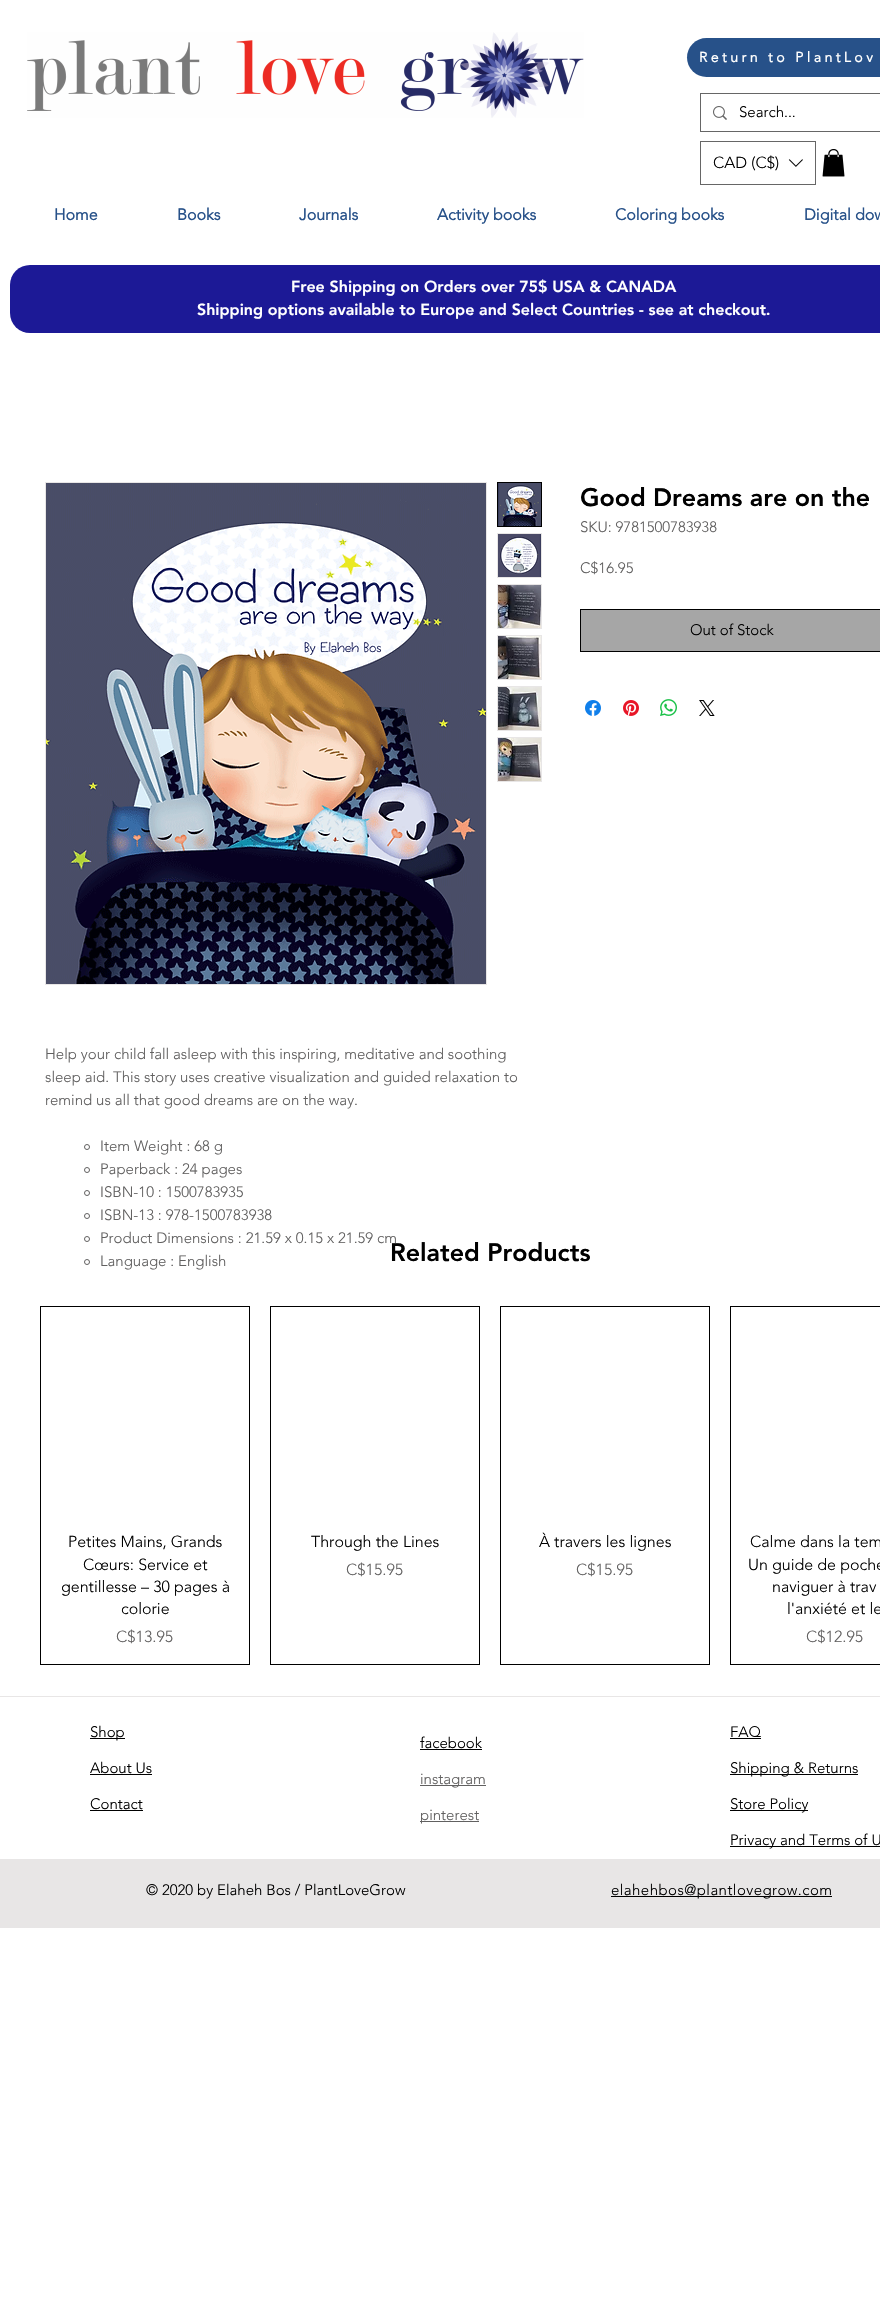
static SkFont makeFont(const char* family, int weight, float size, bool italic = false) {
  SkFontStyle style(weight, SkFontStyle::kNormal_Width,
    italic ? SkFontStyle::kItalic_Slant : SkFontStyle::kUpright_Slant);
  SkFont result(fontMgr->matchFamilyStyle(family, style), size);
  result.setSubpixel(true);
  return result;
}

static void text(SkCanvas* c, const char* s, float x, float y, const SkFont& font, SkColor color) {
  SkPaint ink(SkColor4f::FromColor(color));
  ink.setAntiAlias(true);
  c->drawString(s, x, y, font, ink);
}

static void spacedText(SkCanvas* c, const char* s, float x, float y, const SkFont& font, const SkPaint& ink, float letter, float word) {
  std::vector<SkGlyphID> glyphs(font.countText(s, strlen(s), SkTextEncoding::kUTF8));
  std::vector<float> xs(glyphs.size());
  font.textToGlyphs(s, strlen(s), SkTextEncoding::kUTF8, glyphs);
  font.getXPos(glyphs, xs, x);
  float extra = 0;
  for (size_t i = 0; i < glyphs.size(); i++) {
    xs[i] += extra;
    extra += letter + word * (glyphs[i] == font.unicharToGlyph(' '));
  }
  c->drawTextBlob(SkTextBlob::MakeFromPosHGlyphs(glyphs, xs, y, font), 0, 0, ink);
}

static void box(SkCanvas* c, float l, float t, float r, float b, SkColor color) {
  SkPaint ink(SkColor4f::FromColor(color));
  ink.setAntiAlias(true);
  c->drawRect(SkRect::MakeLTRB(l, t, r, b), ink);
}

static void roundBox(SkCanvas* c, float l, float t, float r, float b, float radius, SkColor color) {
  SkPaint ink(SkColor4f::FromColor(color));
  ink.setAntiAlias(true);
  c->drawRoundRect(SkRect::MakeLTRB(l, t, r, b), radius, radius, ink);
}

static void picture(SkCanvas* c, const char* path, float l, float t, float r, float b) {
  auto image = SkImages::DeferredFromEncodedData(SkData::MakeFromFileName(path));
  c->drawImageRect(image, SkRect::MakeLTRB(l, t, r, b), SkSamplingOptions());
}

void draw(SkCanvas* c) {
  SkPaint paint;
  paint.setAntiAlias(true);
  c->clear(0xffffffff);
  picture(c, "img_01.png", 27, 32, 584, 118);
  roundBox(c, 687, 38, 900, 77, 19.5f, 0xff275189);
  SkFont face1 = makeFont("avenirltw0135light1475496", 700, 14);
  paint.setColor(0xffffffff);
  spacedText(c, "Return to PlantLov", 699, 62, face1, paint, 3.5f, 0);
  paint.setStyle(SkPaint::kStroke_Style);
  paint.setStrokeWidth(1);
  paint.setColor(0xff666666);
  c->drawRect(SkRect::MakeLTRB(700.5f, 93.5f, 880.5f, 131.5f), paint);
  picture(c, "img_02.png", 713, 106, 727, 120);
  SkFont face2 = makeFont("avenirltw0135light1475496", 300, 15);
  text(c, "Search...", 739, 117, face2, 0xff000000);
  c->drawRect(SkRect::MakeLTRB(700.5f, 141.5f, 815.5f, 184.5f), paint);
  SkFont face3 = makeFont("avenirltw0135light1475496", 300, 16);
  text(c, "CAD (C$)", 713, 168, face3, 0xff000000);
  picture(c, "img_03.png", 788, 159, 803, 167);
  picture(c, "img_04.png", 822, 149, 845, 177);
  SkFont face4 = makeFont("avenirltw0135light1475496", 700, 16);
  text(c, "Home", 54, 220, face4, 0xff275189);
  text(c, "Books", 177, 220, face4, 0xff275189);
  text(c, "Journals", 299, 220, face4, 0xff275189);
  text(c, "Activity books", 437, 220, face4, 0xff275189);
  text(c, "Coloring books", 615, 220, face4, 0xff275189);
  text(c, "Digital dow", 804, 220, face4, 0xff275189);
  roundBox(c, 10, 265, 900, 333, 20, 0xff1c1996);
  SkFont face5 = makeFont("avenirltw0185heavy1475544", 900, 16);
  text(c, "Free Shipping on Orders over 75$ USA & CANADA", 291, 292, face5, 0xffffffff);
  text(c, "Shipping options available to Europe and Select Countries - see at checkout.", 197, 315, face5, 0xffffffff);
  SkFont face6 = makeFont("avenirltw0185heavy1475544", 900, 25);
  text(c, "Good Dreams are on the", 580, 506, face6, 0xff000000);
  text(c, "SKU: 9781500783938", 580, 532, face2, 0xff616060);
  text(c, "C$16.95", 580, 573, face2, 0xff616060);
  paint.setStyle(SkPaint::kFill_Style);
  paint.setColor(0xffa6a6a6);
  c->drawRect(SkRect::MakeLTRB(580.5f, 609.5f, 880.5f, 651.5f), paint);
  paint.setStyle(SkPaint::kStroke_Style);
  paint.setColor(0xff000000);
  c->drawRect(SkRect::MakeLTRB(580.5f, 609.5f, 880.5f, 651.5f), paint);
  text(c, "Out of Stock", 690, 635, face2, 0xff000000);
  picture(c, "img_05.png", 585, 700, 601, 716);
  picture(c, "img_06.png", 623, 700, 639, 716);
  picture(c, "img_07.png", 660, 699, 677, 716);
  picture(c, "img_08.png", 699, 700, 715, 716);
  paint.setColor(0xffe8e6e6);
  c->drawRect(SkRect::MakeLTRB(45.5f, 482.5f, 486.5f, 984.5f), paint);
  picture(c, "img_09.png", 46, 483, 486, 984);
  paint.setColor(0xff000000);
  c->drawRect(SkRect::MakeLTRB(497.5f, 482.5f, 541.5f, 526.5f), paint);
  picture(c, "img_10.png", 498, 483, 541, 526);
  paint.setColor(0xffe8e6e6);
  c->drawRect(SkRect::MakeLTRB(497.5f, 533.5f, 541.5f, 577.5f), paint);
  picture(c, "img_11.png", 498, 534, 541, 577);
  c->drawRect(SkRect::MakeLTRB(497.5f, 584.5f, 541.5f, 628.5f), paint);
  picture(c, "img_12.png", 498, 585, 541, 628);
  c->drawRect(SkRect::MakeLTRB(497.5f, 635.5f, 541.5f, 679.5f), paint);
  picture(c, "img_13.png", 498, 636, 541, 679);
  c->drawRect(SkRect::MakeLTRB(497.5f, 686.5f, 541.5f, 730.5f), paint);
  picture(c, "img_14.png", 498, 687, 541, 730);
  c->drawRect(SkRect::MakeLTRB(497.5f, 737.5f, 541.5f, 781.5f), paint);
  picture(c, "img_15.png", 498, 738, 541, 781);
  text(c, "Help your child fall asleep with this inspiring, meditative and soothing", 45, 1059, face2, 0xff616060);
  text(c, "sleep aid. This story uses creative visualization and guided relaxation to", 45, 1082, face2, 0xff616060);
  text(c, "remind us all that good dreams are on the way.", 45, 1105, face2, 0xff616060);
  paint.setColor(0xff616060);
  c->drawCircle(87, 1147, 2.5f, paint);
  text(c, "Item Weight : 68 g", 100, 1151, face2, 0xff616060);
  c->drawCircle(87, 1170, 2.5f, paint);
  text(c, "Paperback : 24 pages", 100, 1174, face2, 0xff616060);
  c->drawCircle(87, 1193, 2.5f, paint);
  text(c, "ISBN-10 : 1500783935", 100, 1197, face2, 0xff616060);
  c->drawCircle(87, 1216, 2.5f, paint);
  text(c, "ISBN-13 : 978-1500783938", 100, 1220, face2, 0xff616060);
  c->drawCircle(87, 1239, 2.5f, paint);
  text(c, "Product Dimensions : 21.59 x 0.15 x 21.59 cm", 100, 1243, face2, 0xff616060);
  c->drawCircle(87, 1262, 2.5f, paint);
  text(c, "Language : English", 100, 1266, face2, 0xff616060);
  text(c, "Related Products", 390, 1261, face6, 0xff000000);
  paint.setColor(0xff000000);
  c->drawRect(SkRect::MakeLTRB(40.5f, 1306.5f, 249.5f, 1664.5f), paint);
  text(c, "Petites Mains, Grands", 68, 1547, face3, 0xff000000);
  text(c, "Cœurs: Service et", 83, 1570, face3, 0xff000000);
  text(c, "gentillesse – 30 pages à", 61, 1592, face3, 0xff000000);
  text(c, "colorie", 121, 1614, face3, 0xff000000);
  text(c, "C$13.95", 116, 1642, face3, 0xff616060);
  c->drawRect(SkRect::MakeLTRB(270.5f, 1306.5f, 479.5f, 1664.5f), paint);
  text(c, "Through the Lines", 311, 1547, face3, 0xff000000);
  text(c, "C$15.95", 346, 1575, face3, 0xff616060);
  c->drawRect(SkRect::MakeLTRB(500.5f, 1306.5f, 709.5f, 1664.5f), paint);
  text(c, "À travers les lignes", 539, 1547, face3, 0xff000000);
  text(c, "C$15.95", 576, 1575, face3, 0xff616060);
  c->drawRect(SkRect::MakeLTRB(730.5f, 1306.5f, 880.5f, 1664.5f), paint);
  text(c, "Calme dans la tem", 750, 1547, face3, 0xff000000);
  text(c, "Un guide de poche", 748, 1570, face3, 0xff000000);
  text(c, "naviguer à trav", 772, 1592, face3, 0xff000000);
  text(c, "l'anxiété et le", 787, 1614, face3, 0xff000000);
  text(c, "C$12.95", 806, 1642, face3, 0xff616060);
  box(c, 0, 1696, 880, 1697, 0xffe8e6e6);
  box(c, 90, 1738, 125, 1739, 0xff000000);
  text(c, "Shop", 90, 1737, face2, 0xff000000);
  text(c, "About Us", 90, 1773, face2, 0xff000000);
  box(c, 90, 1774, 152, 1775, 0xff000000);
  text(c, "Contact", 90, 1809, face2, 0xff000000);
  box(c, 90, 1810, 143, 1811, 0xff000000);
  text(c, "facebook", 420, 1748, face2, 0xff000000);
  box(c, 420, 1749, 482, 1750, 0xff000000);
  box(c, 420, 1785, 486, 1786, 0xff616060);
  text(c, "instagram", 420, 1784, face2, 0xff616060);
  box(c, 420, 1821, 479, 1822, 0xff616060);
  text(c, "pinterest", 420, 1820, face2, 0xff616060);
  text(c, "FAQ", 730, 1737, face2, 0xff000000);
  box(c, 730, 1738, 761, 1739, 0xff000000);
  box(c, 730, 1774, 858, 1775, 0xff000000);
  text(c, "Shipping & Returns", 730, 1773, face2, 0xff000000);
  box(c, 730, 1810, 808, 1811, 0xff000000);
  text(c, "Store Policy", 730, 1809, face2, 0xff000000);
  box(c, 730, 1846, 880, 1847, 0xff000000);
  text(c, "Privacy and Terms of U", 730, 1845, face2, 0xff000000);
  box(c, 0, 1859, 880, 1928, 0xffe8e6e6);
  text(c, "© 2020 by Elaheh Bos / PlantLoveGrow", 146, 1895, face2, 0xff000000);
  box(c, 611, 1896, 832, 1897, 0xff000000);
  paint.setStyle(SkPaint::kFill_Style);
  spacedText(c, "elahehbos@plantlovegrow.com", 611, 1895, face2, paint, 0.45f, 0);
}
